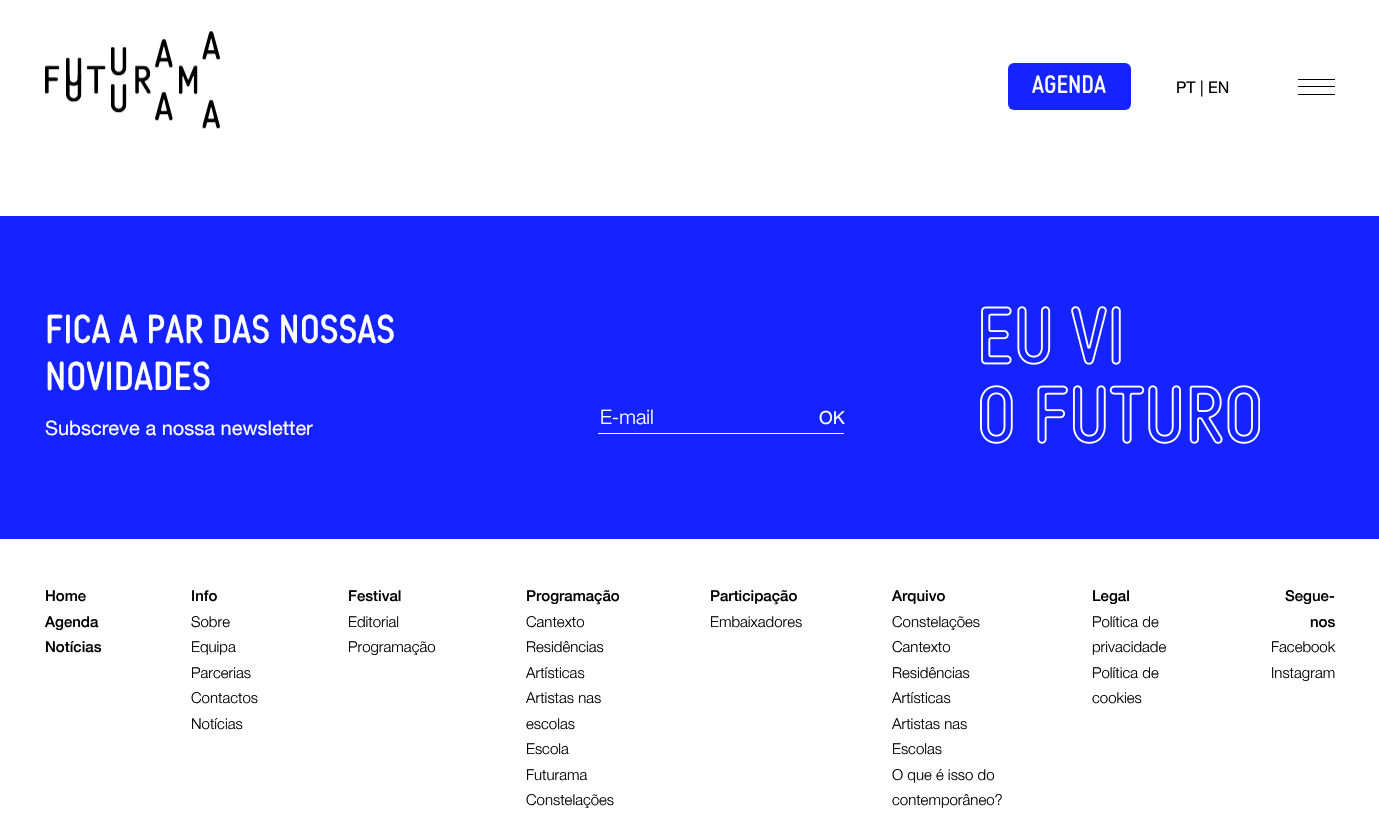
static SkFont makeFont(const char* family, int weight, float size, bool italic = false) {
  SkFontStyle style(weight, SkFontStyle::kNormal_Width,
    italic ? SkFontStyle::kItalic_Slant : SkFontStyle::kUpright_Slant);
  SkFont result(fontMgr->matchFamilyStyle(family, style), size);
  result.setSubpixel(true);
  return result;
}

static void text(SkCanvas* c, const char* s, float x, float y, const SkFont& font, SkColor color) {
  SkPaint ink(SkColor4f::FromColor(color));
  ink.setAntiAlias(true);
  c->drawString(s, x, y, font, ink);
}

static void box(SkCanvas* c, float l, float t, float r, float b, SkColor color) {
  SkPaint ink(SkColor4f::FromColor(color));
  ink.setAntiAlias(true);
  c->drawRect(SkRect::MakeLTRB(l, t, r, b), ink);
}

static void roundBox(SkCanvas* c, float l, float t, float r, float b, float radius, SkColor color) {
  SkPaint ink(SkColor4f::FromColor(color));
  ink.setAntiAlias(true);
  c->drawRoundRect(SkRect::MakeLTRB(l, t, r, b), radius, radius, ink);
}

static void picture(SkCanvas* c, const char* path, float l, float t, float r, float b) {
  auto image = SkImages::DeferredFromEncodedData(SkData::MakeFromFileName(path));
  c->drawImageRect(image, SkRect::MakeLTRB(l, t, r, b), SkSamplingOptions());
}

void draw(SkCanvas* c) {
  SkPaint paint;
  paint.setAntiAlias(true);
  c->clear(0xffffffff);
  picture(c, "img_01.png", 45, 31, 220, 129);
  roundBox(c, 1008, 63, 1131, 110, 6, 0xff1523ff);
  SkFont face1 = makeFont("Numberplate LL", 400, 25);
  text(c, "AGENDA", 1032, 93, face1, 0xffffffff);
  SkFont face2 = makeFont("Helvetica Neue", 400, 16);
  text(c, "PT | EN", 1176, 93, face2, 0xff000000);
  box(c, 1298, 79, 1335, 80, 0xff000000);
  box(c, 1298, 86, 1335, 87, 0xff000000);
  box(c, 1298, 94, 1335, 95, 0xff000000);
  box(c, 0, 216, 1379, 539, 0xff1523ff);
  SkFont face3 = makeFont("Numberplate LL", 400, 40);
  text(c, "Fica a par das nossas", 45, 343, face3, 0xffffffff);
  text(c, "novidades", 45, 390, face3, 0xffffffff);
  SkFont face4 = makeFont("Helvetica Neue", 400, 20);
  text(c, "Subscreve a nossa newsletter", 45, 435, face4, 0xffffffff);
  box(c, 598, 433, 844, 434, 0xffffffff);
  SkFont face5 = makeFont("Helvetica Neue", 300, 20);
  text(c, "E-mail", 600, 424, face5, 0xffffffff);
  SkFont face6 = makeFont("Helvetica Neue", 400, 18);
  text(c, "OK", 819, 424, face6, 0xffffffff);
  picture(c, "img_02.png", 980, 306, 1260, 444);
  SkFont face7 = makeFont("Helvetica Neue", 500, 15);
  text(c, "Home", 45, 601, face7, 0xff000000);
  text(c, "Agenda", 45, 627, face7, 0xff000000);
  text(c, "Notícias", 45, 652, face7, 0xff000000);
  text(c, "Info", 191, 601, face7, 0xff000000);
  SkFont face8 = makeFont("Helvetica Neue", 300, 15);
  text(c, "Sobre", 191, 627, face8, 0xff000000);
  text(c, "Equipa", 191, 652, face8, 0xff000000);
  text(c, "Parcerias", 191, 678, face8, 0xff000000);
  text(c, "Contactos", 191, 703, face8, 0xff000000);
  text(c, "Notícias", 191, 729, face8, 0xff000000);
  text(c, "Festival", 348, 601, face7, 0xff000000);
  text(c, "Editorial", 348, 627, face8, 0xff000000);
  text(c, "Programação", 348, 652, face8, 0xff000000);
  text(c, "Programação", 526, 601, face7, 0xff000000);
  text(c, "Cantexto", 526, 627, face8, 0xff000000);
  text(c, "Residências", 526, 652, face8, 0xff000000);
  text(c, "Artísticas", 526, 678, face8, 0xff000000);
  text(c, "Artistas nas", 526, 703, face8, 0xff000000);
  text(c, "escolas", 526, 729, face8, 0xff000000);
  text(c, "Escola", 526, 754, face8, 0xff000000);
  text(c, "Futurama", 526, 780, face8, 0xff000000);
  text(c, "Constelações", 526, 805, face8, 0xff000000);
  text(c, "Participação", 710, 601, face7, 0xff000000);
  text(c, "Embaixadores", 710, 627, face8, 0xff000000);
  text(c, "Arquivo", 892, 601, face7, 0xff000000);
  text(c, "Constelações", 892, 627, face8, 0xff000000);
  text(c, "Cantexto", 892, 652, face8, 0xff000000);
  text(c, "Residências", 892, 678, face8, 0xff000000);
  text(c, "Artísticas", 892, 703, face8, 0xff000000);
  text(c, "Artistas nas", 892, 729, face8, 0xff000000);
  text(c, "Escolas", 892, 754, face8, 0xff000000);
  text(c, "O que é isso do", 892, 780, face8, 0xff000000);
  text(c, "contemporâneo?", 892, 805, face8, 0xff000000);
  text(c, "Legal", 1092, 601, face7, 0xff000000);
  text(c, "Política de", 1092, 627, face8, 0xff000000);
  text(c, "privacidade", 1092, 652, face8, 0xff000000);
  text(c, "Política de", 1092, 678, face8, 0xff000000);
  text(c, "cookies", 1092, 703, face8, 0xff000000);
  text(c, "Segue-", 1285, 601, face7, 0xff000000);
  text(c, "nos", 1310, 627, face7, 0xff000000);
  text(c, "Facebook", 1271, 652, face8, 0xff000000);
  text(c, "Instagram", 1271, 678, face8, 0xff000000);
}
